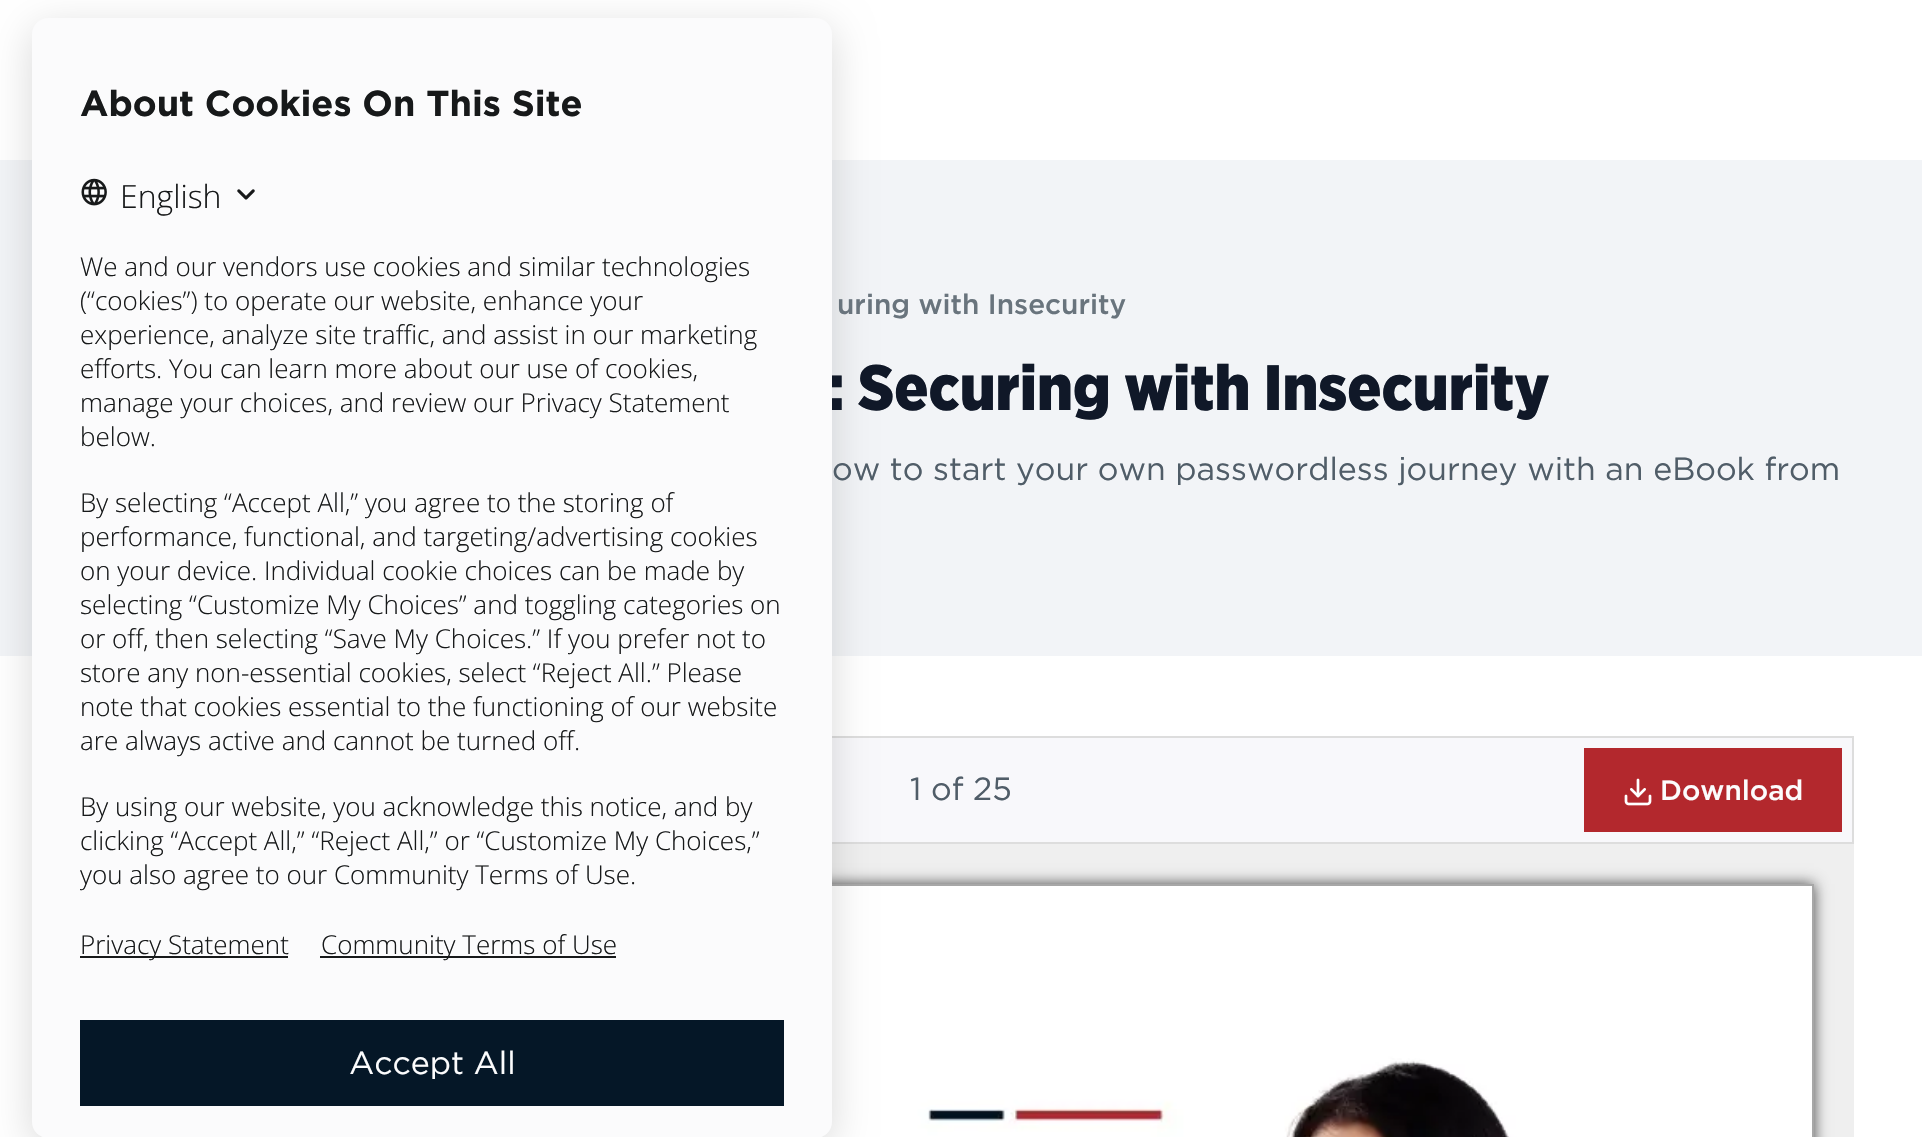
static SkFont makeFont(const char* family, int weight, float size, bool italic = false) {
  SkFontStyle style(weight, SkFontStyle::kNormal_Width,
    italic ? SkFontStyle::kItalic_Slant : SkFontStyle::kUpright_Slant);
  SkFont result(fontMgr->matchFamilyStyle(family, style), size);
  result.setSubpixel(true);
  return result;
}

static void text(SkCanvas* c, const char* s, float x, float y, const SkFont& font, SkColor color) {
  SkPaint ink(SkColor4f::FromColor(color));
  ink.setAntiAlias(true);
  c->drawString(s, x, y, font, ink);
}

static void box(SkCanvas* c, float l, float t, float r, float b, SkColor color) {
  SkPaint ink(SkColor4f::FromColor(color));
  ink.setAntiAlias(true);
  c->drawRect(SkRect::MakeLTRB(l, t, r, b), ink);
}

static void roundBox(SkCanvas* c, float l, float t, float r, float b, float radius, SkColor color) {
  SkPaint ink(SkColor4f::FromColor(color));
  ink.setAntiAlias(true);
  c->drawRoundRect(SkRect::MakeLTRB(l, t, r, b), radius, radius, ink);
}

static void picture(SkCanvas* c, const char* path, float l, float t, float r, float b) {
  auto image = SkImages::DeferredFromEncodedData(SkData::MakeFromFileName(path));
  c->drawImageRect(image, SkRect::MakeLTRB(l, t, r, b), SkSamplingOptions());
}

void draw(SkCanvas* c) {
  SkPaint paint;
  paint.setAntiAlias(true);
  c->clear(0xffffffff);
  box(c, 0, 160, 1922, 656, 0xfff2f4f7);
  box(c, 832, 844, 1854, 1137, 0xffefefef);
  box(c, 832, 738, 1852, 842, 0xfff8f8fb);
  paint.setStyle(SkPaint::kStroke_Style);
  paint.setStrokeWidth(2);
  paint.setColor(0xffdddddd);
  c->drawRect(SkRect::MakeLTRB(69, 737, 1853, 843), paint);
  paint.setStyle(SkPaint::kFill_Style);
  paint.setColor(0xb3000000);
  paint.setMaskFilter(SkMaskFilter::MakeBlur(kNormal_SkBlurStyle, 7));
  c->drawRect(SkRect::MakeLTRB(108, 884, 1814, 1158), paint);
  paint.setMaskFilter(nullptr);
  paint.setStyle(SkPaint::kStroke_Style);
  paint.setColor(0xffa7a7a7);
  c->drawRect(SkRect::MakeLTRB(109, 885, 1813, 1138), paint);
  picture(c, "img_04.png", 821, 886, 1812, 1137);
  paint.setStyle(SkPaint::kFill_Style);
  paint.setColor(0x26000000);
  paint.setMaskFilter(SkMaskFilter::MakeBlur(kNormal_SkBlurStyle, 20));
  c->drawRoundRect(SkRect::MakeLTRB(32, 28, 832, 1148), 16, 16, paint);
  paint.setMaskFilter(nullptr);
  SkFont face1 = makeFont("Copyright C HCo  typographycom", 400, 64, true);
  text(c, ": Securing with Insecurity", 827, 410, face1, 0xff101828);
  roundBox(c, 32, 18, 832, 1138, 16, 0xfffbfbfc);
  SkFont face2 = makeFont("Gotham", 700, 36);
  text(c, "About Cookies On This Site", 80, 116, face2, 0xff17191a);
  picture(c, "img_01.png", 81, 178, 107, 206);
  SkFont face3 = makeFont("Open Sans", 300, 32);
  text(c, "English", 120, 208, face3, 0xff17191a);
  picture(c, "img_02.png", 237, 189, 255, 200);
  SkFont face4 = makeFont("Open Sans", 300, 26);
  text(c, "We and our vendors use cookies and similar technologies", 80, 276, face4, 0xff17191a);
  text(c, "(“cookies”) to operate our website, enhance your", 80, 310, face4, 0xff17191a);
  text(c, "experience, analyze site traffic, and assist in our marketing", 80, 344, face4, 0xff17191a);
  text(c, "efforts. You can learn more about our use of cookies,", 80, 378, face4, 0xff17191a);
  text(c, "manage your choices, and review our Privacy Statement", 80, 412, face4, 0xff17191a);
  text(c, "below.", 80, 446, face4, 0xff17191a);
  text(c, "By selecting “Accept All,” you agree to the storing of", 80, 512, face4, 0xff17191a);
  text(c, "performance, functional, and targeting/advertising cookies", 80, 546, face4, 0xff17191a);
  text(c, "on your device. Individual cookie choices can be made by", 80, 580, face4, 0xff17191a);
  text(c, "selecting “Customize My Choices” and toggling categories on", 80, 614, face4, 0xff17191a);
  text(c, "or off, then selecting “Save My Choices.” If you prefer not to", 80, 648, face4, 0xff17191a);
  text(c, "store any non-essential cookies, select “Reject All.” Please", 80, 682, face4, 0xff17191a);
  text(c, "note that cookies essential to the functioning of our website", 80, 716, face4, 0xff17191a);
  text(c, "are always active and cannot be turned off.", 80, 750, face4, 0xff17191a);
  text(c, "By using our website, you acknowledge this notice, and by", 80, 816, face4, 0xff17191a);
  text(c, "clicking “Accept All,” “Reject All,” or “Customize My Choices,”", 80, 850, face4, 0xff17191a);
  text(c, "you also agree to our Community Terms of Use.", 80, 884, face4, 0xff17191a);
  box(c, 80, 956, 288, 958, 0xff17191a);
  text(c, "Privacy Statement", 80, 954, face4, 0xff17191a);
  box(c, 320, 956, 616, 958, 0xff17191a);
  text(c, "Community Terms of Use", 321, 954, face4, 0xff17191a);
  box(c, 80, 1020, 784, 1106, 0xff051727);
  SkFont face5 = makeFont("Gotham", 400, 32);
  text(c, "Accept All", 349, 1074, face5, 0xfffcfcfd);
  SkFont face6 = makeFont("Gotham", 500, 28);
  text(c, "uring with Insecurity", 837, 314, face6, 0xff69747d);
  text(c, "ow to start your own passwordless journey with an eBook from", 832, 480, face5, 0xff505d68);
  text(c, "1 of 25", 910, 800, face5, 0xff505d68);
  box(c, 1584, 748, 1842, 832, 0xffb3282d);
  picture(c, "img_03.png", 1624, 778, 1652, 806);
  text(c, "Download", 1660, 800, face6, 0xfffcfcfd);
}
